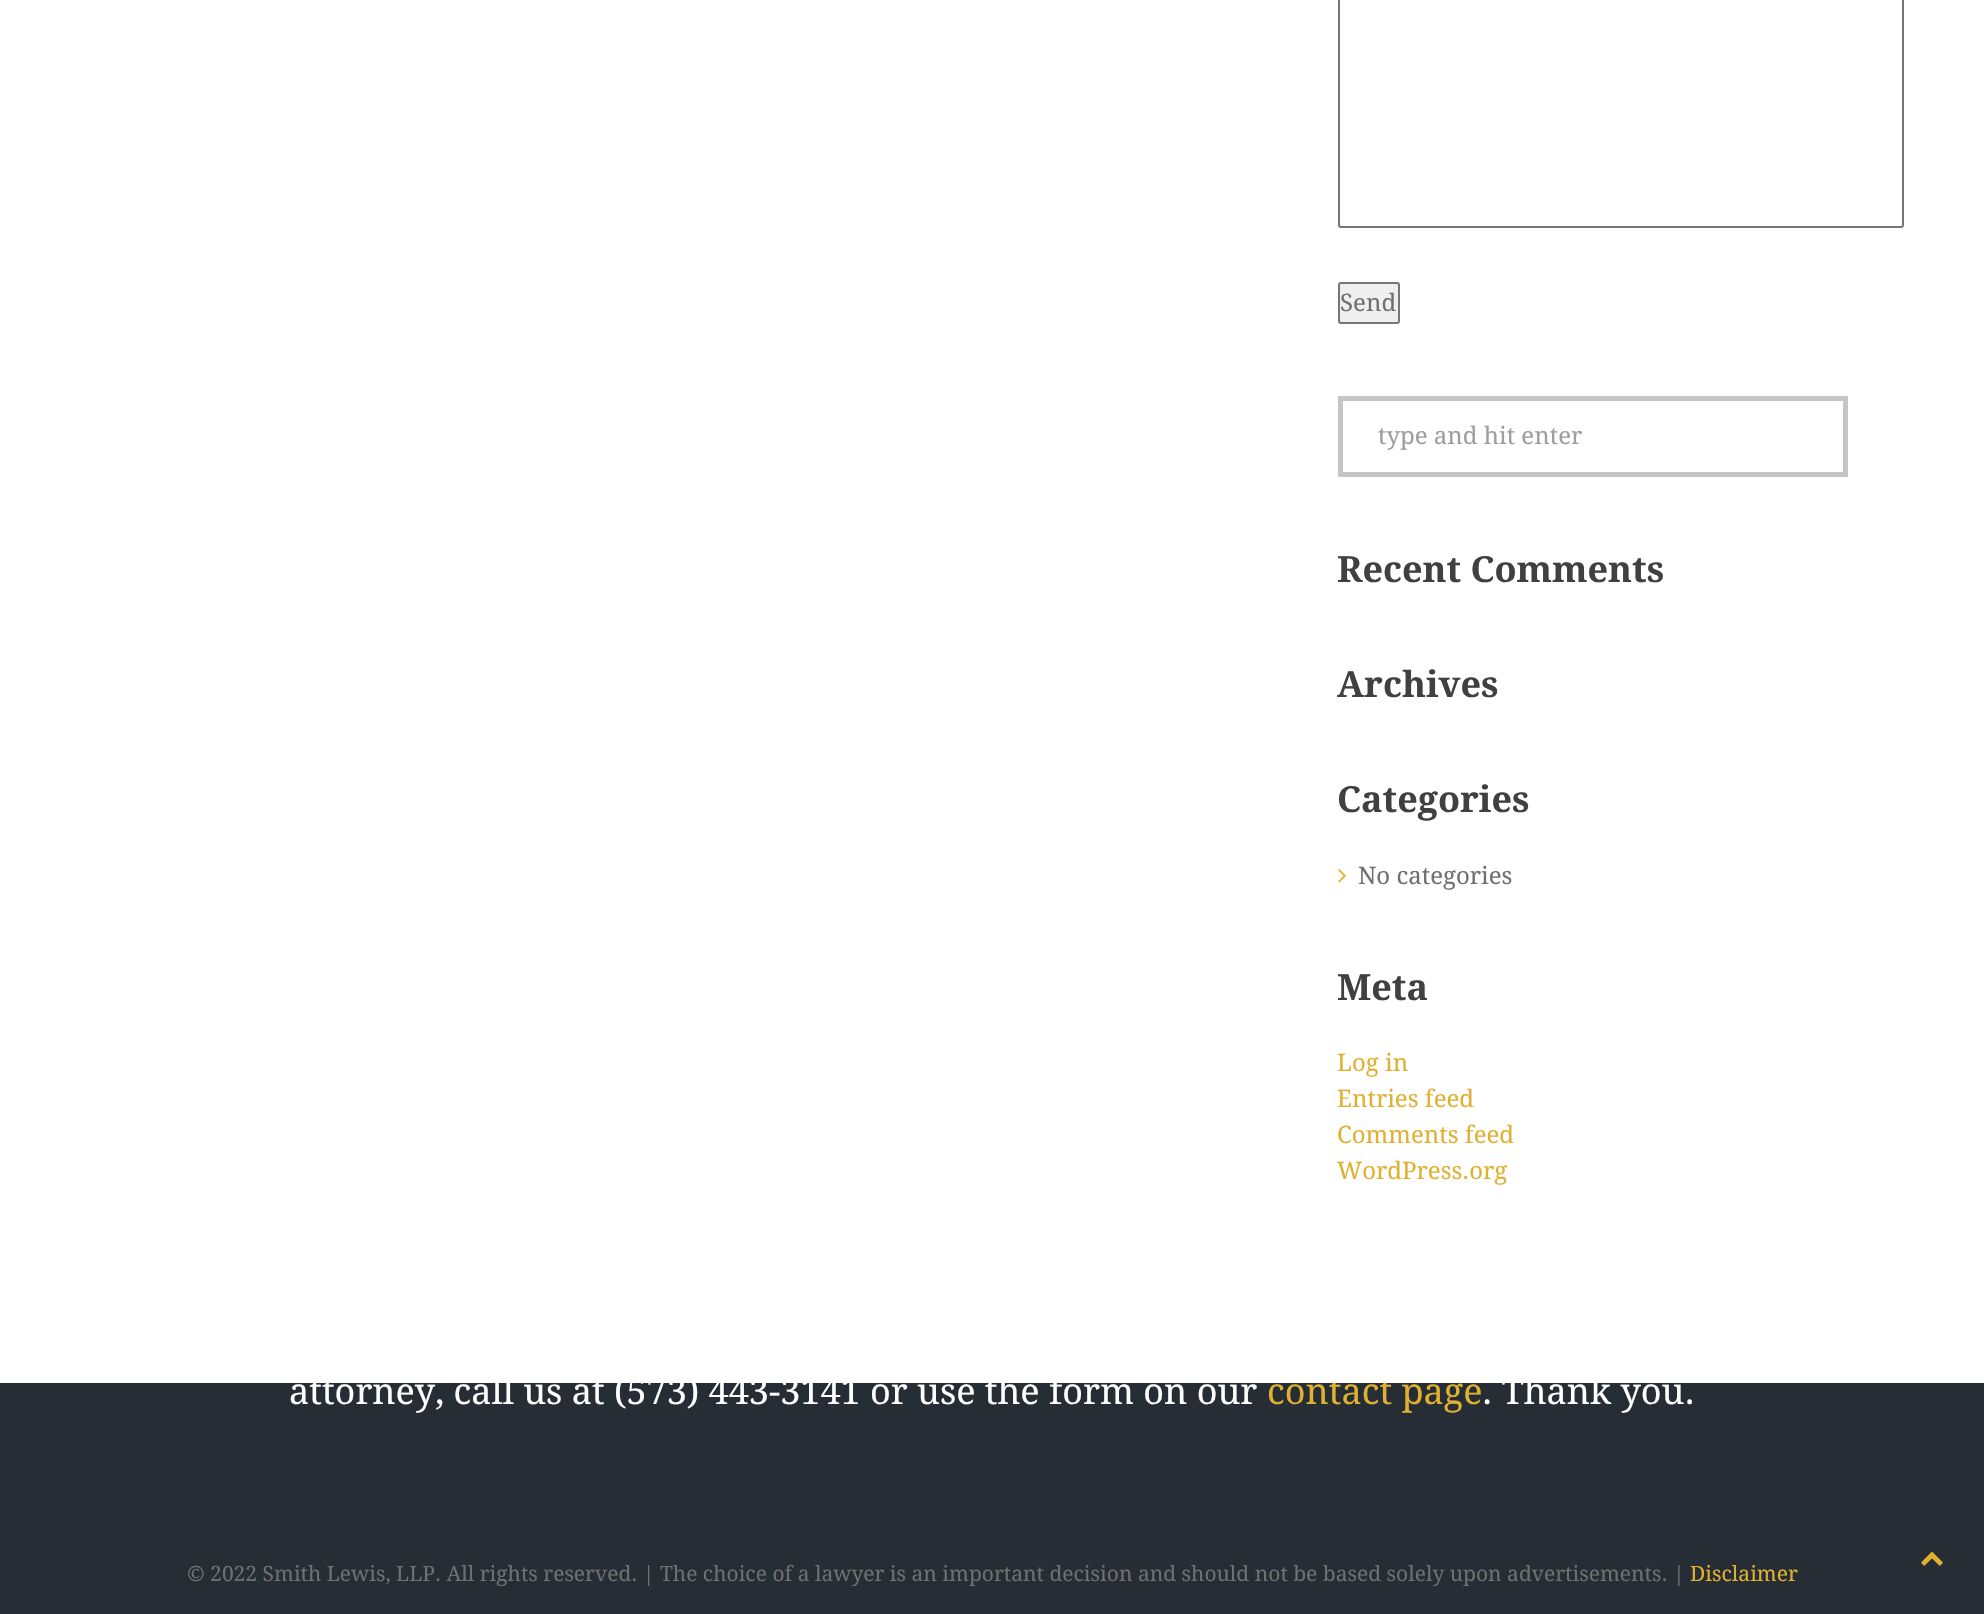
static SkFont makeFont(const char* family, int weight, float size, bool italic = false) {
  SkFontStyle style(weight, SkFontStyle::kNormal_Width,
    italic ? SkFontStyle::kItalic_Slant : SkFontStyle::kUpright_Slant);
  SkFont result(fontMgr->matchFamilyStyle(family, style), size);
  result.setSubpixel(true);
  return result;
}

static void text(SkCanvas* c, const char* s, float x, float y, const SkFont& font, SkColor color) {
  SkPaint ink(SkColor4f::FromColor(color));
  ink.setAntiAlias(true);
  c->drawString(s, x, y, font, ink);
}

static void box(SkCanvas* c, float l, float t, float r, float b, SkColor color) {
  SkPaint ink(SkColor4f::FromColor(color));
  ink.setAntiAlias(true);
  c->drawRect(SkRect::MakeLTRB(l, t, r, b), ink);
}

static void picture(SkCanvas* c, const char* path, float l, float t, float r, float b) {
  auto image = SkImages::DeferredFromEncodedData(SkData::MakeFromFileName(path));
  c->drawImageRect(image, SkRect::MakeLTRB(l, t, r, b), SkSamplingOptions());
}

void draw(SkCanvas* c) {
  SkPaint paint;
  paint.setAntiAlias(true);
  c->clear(0xff272d34);
  SkFont face1 = makeFont("Droid Serif", 400, 36);
  text(c, "contact page", 1267, 1404, face1, 0xffe0b131);
  box(c, 0, 0, 1984, 1383, 0xffffffff);
  paint.setStyle(SkPaint::kStroke_Style);
  paint.setStrokeWidth(2);
  paint.setColor(0xff767676);
  c->drawRoundRect(SkRect::MakeLTRB(1339, -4, 1903, 227), 2, 2, paint);
  paint.setStyle(SkPaint::kFill_Style);
  paint.setColor(0xffefefef);
  c->drawRoundRect(SkRect::MakeLTRB(1339, 283, 1399, 323), 2, 2, paint);
  paint.setStyle(SkPaint::kStroke_Style);
  paint.setColor(0xff767676);
  c->drawRoundRect(SkRect::MakeLTRB(1339, 283, 1399, 323), 2, 2, paint);
  SkFont face2 = makeFont("Droid Serif", 400, 24);
  text(c, "Send", 1340, 311, face2, 0xff707070);
  paint.setStrokeWidth(5);
  paint.setColor(0xffc5c5c5);
  c->drawRect(SkRect::MakeLTRB(1340.5f, 398.5f, 1845.5f, 474.5f), paint);
  text(c, "type and hit enter", 1378, 444, face2, 0xff9e9e9e);
  SkFont face3 = makeFont("Droid Serif", 700, 36);
  text(c, "Recent Comments", 1337, 582, face3, 0xff404040);
  text(c, "Archives", 1337, 697, face3, 0xff404040);
  text(c, "Categories", 1337, 812, face3, 0xff404040);
  picture(c, "img_01.png", 1338, 869, 1346, 883);
  text(c, "No categories", 1358, 884, face2, 0xff707070);
  text(c, "Meta", 1337, 1000, face3, 0xff404040);
  text(c, "Log in", 1337, 1071, face2, 0xffe0b131);
  text(c, "Entries feed", 1337, 1107, face2, 0xffe0b131);
  text(c, "Comments feed", 1337, 1143, face2, 0xffe0b131);
  text(c, "WordPress.org", 1337, 1179, face2, 0xffe0b131);
  text(c, "attorney, call us at (573) 443-3141 or use the form on our", 289, 1404, face1, 0xffffffff);
  text(c, ". Thank you.", 1482, 1404, face1, 0xffffffff);
  SkFont face4 = makeFont("Droid Serif", 400, 21);
  text(c, "© 2022 Smith Lewis, LLP. All rights reserved. | The choice of a lawyer is an important decision and should not be based solely upon advertisements. |", 187, 1581, face4, 0xff707070);
  text(c, "Disclaimer", 1690, 1581, face4, 0xffe0b131);
  picture(c, "img_02.png", 1921, 1551, 1943, 1566);
}
